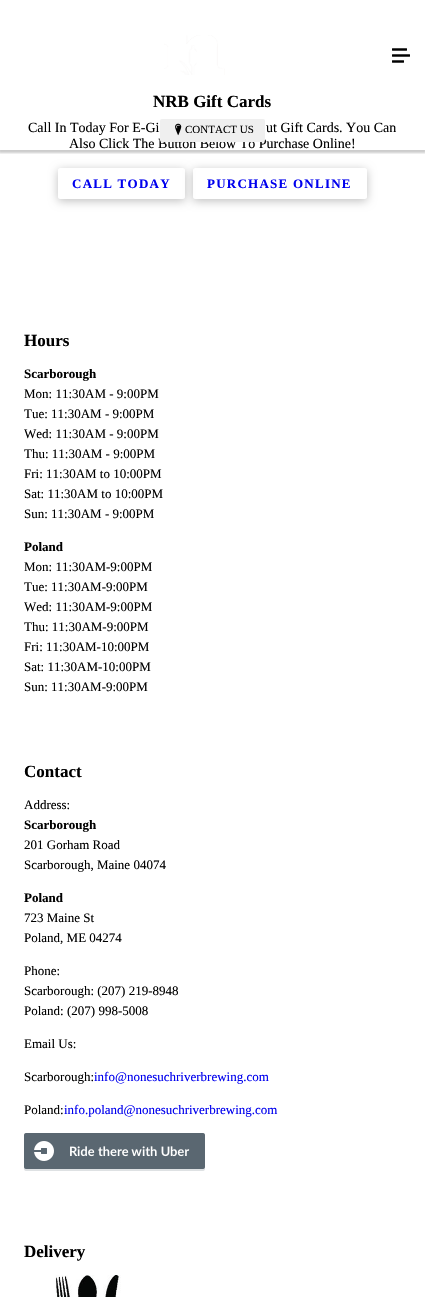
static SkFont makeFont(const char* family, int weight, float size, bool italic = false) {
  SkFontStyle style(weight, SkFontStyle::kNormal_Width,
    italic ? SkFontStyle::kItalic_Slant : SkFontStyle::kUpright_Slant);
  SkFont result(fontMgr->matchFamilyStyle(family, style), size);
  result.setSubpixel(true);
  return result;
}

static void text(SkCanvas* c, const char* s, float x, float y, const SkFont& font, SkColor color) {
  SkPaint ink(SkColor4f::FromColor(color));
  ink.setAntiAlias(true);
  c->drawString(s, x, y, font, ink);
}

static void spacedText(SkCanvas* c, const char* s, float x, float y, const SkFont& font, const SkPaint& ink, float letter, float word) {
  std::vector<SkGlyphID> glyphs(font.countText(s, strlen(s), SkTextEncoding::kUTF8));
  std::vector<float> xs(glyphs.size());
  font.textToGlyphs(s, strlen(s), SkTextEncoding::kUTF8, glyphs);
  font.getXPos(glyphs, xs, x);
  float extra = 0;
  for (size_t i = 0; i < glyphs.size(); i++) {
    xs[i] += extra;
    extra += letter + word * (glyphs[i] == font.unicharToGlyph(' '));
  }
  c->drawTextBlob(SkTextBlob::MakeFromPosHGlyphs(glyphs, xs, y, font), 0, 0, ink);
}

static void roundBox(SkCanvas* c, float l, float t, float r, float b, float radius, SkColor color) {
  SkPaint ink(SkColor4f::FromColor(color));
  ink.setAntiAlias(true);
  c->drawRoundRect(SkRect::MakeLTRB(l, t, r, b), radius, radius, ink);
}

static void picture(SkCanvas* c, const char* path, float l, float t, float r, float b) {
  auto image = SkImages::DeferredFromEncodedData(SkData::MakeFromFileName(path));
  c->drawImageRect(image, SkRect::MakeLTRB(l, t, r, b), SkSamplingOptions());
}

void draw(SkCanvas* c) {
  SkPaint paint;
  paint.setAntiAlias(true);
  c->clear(0xffffffff);
  SkFont face1 = makeFont("Liberation Serif", 700, 17);
  text(c, "NRB Gift Cards", 153, 107, face1, 0xff000000);
  SkFont face2 = makeFont("Liberation Serif", 400, 14);
  text(c, "Call In Today For E-Gi", 28, 132, face2, 0xff000000);
  text(c, "ut Gift Cards. You Can", 266, 132, face2, 0xff000000);
  text(c, "Also Click The Button Below To Purchase Online!", 69, 148, face2, 0xff000000);
  c->save();
  c->clipPath(SkPathBuilder(SkPathFillType::kEvenOdd).moveTo(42, 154).lineTo(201, 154).lineTo(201, 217).lineTo(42, 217).close().moveTo(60, 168).lineTo(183, 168).cubicTo(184, 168, 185, 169, 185, 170).lineTo(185, 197).cubicTo(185, 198, 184, 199, 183, 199).lineTo(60, 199).cubicTo(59, 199, 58, 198, 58, 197).lineTo(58, 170).cubicTo(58, 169, 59, 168, 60, 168).close().detach(), true);
  paint.setColor(0x40000000);
  paint.setMaskFilter(SkMaskFilter::MakeBlur(kNormal_SkBlurStyle, 5));
  c->drawRoundRect(SkRect::MakeLTRB(58, 170, 185, 201), 2, 2, paint);
  paint.setMaskFilter(nullptr);
  c->restore();
  SkFont face3 = makeFont("Liberation Serif", 700, 13);
  paint.setColor(0xff0000ee);
  spacedText(c, "CALL TODAY", 72, 188, face3, paint, 1.25f, 0);
  c->save();
  c->clipPath(SkPathBuilder(SkPathFillType::kEvenOdd).moveTo(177, 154).lineTo(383, 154).lineTo(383, 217).lineTo(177, 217).close().moveTo(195, 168).lineTo(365, 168).cubicTo(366, 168, 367, 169, 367, 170).lineTo(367, 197).cubicTo(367, 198, 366, 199, 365, 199).lineTo(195, 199).cubicTo(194, 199, 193, 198, 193, 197).lineTo(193, 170).cubicTo(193, 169, 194, 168, 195, 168).close().detach(), true);
  paint.setColor(0x40000000);
  paint.setMaskFilter(SkMaskFilter::MakeBlur(kNormal_SkBlurStyle, 5));
  c->drawRoundRect(SkRect::MakeLTRB(193, 170, 367, 201), 2, 2, paint);
  paint.setMaskFilter(nullptr);
  c->restore();
  paint.setColor(0xff0000ee);
  spacedText(c, "PURCHASE ONLINE", 207, 188, face3, paint, 1.25f, 0);
  picture(c, "img_01.png", 164, 35, 225, 75);
  picture(c, "img_02.png", 392, 48, 410, 63);
  c->save();
  c->clipRect(SkRect::MakeLTRB(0, 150, 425, 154));
  paint.setColor(0x33000000);
  paint.setMaskFilter(SkMaskFilter::MakeBlur(kNormal_SkBlurStyle, 1));
  c->drawRect(SkRect::MakeLTRB(-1, 113, 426, 153), paint);
  paint.setMaskFilter(nullptr);
  c->restore();
  roundBox(c, 160, 119, 265, 142, 2, 0xffefefef);
  picture(c, "img_03.png", 175, 123, 182, 136);
  SkFont face4 = makeFont("Liberation Serif", 400, 11);
  text(c, "CONTACT US", 185, 133, face4, 0xff000000);
  text(c, "Hours", 24, 346, face1, 0xff000000);
  text(c, "Scarborough", 24, 378, face3, 0xff000000);
  SkFont face5 = makeFont("Liberation Serif", 400, 13);
  text(c, "Mon: 11:30AM - 9:00PM", 24, 398, face5, 0xff000000);
  text(c, "Tue: 11:30AM - 9:00PM", 24, 418, face5, 0xff000000);
  text(c, "Wed: 11:30AM - 9:00PM", 24, 438, face5, 0xff000000);
  text(c, "Thu: 11:30AM - 9:00PM", 24, 458, face5, 0xff000000);
  text(c, "Fri: 11:30AM to 10:00PM", 24, 478, face5, 0xff000000);
  text(c, "Sat: 11:30AM to 10:00PM", 24, 498, face5, 0xff000000);
  text(c, "Sun: 11:30AM - 9:00PM", 24, 518, face5, 0xff000000);
  text(c, "Poland", 24, 551, face3, 0xff000000);
  text(c, "Mon: 11:30AM-9:00PM", 24, 571, face5, 0xff000000);
  text(c, "Tue: 11:30AM-9:00PM", 24, 591, face5, 0xff000000);
  text(c, "Wed: 11:30AM-9:00PM", 24, 611, face5, 0xff000000);
  text(c, "Thu: 11:30AM-9:00PM", 24, 631, face5, 0xff000000);
  text(c, "Fri: 11:30AM-10:00PM", 24, 651, face5, 0xff000000);
  text(c, "Sat: 11:30AM-10:00PM", 24, 671, face5, 0xff000000);
  text(c, "Sun: 11:30AM-9:00PM", 24, 691, face5, 0xff000000);
  text(c, "Contact", 24, 777, face1, 0xff000000);
  text(c, "Address:", 24, 809, face5, 0xff000000);
  text(c, "Scarborough", 24, 829, face3, 0xff000000);
  text(c, "201 Gorham Road", 24, 849, face5, 0xff000000);
  text(c, "Scarborough, Maine 04074", 24, 869, face5, 0xff000000);
  text(c, "Poland", 24, 902, face3, 0xff000000);
  text(c, "723 Maine St", 24, 922, face5, 0xff000000);
  text(c, "Poland, ME 04274", 24, 942, face5, 0xff000000);
  text(c, "Phone:", 24, 975, face5, 0xff000000);
  text(c, "Scarborough: (207) 219-8948", 24, 995, face5, 0xff000000);
  text(c, "Poland: (207) 998-5008", 24, 1015, face5, 0xff000000);
  text(c, "Email Us:", 24, 1048, face5, 0xff000000);
  text(c, "Scarborough:", 24, 1081, face5, 0xff000000);
  text(c, "info@nonesuchriverbrewing.com", 94, 1081, face5, 0xff0000ee);
  text(c, "Poland:", 24, 1114, face5, 0xff000000);
  text(c, "info.poland@nonesuchriverbrewing.com", 64, 1114, face5, 0xff0000ee);
  picture(c, "img_04.png", 24, 1133, 205, 1171);
  text(c, "Delivery", 24, 1257, face1, 0xff000000);
  picture(c, "img_05.png", 55, 1275, 121, 1297);
}
